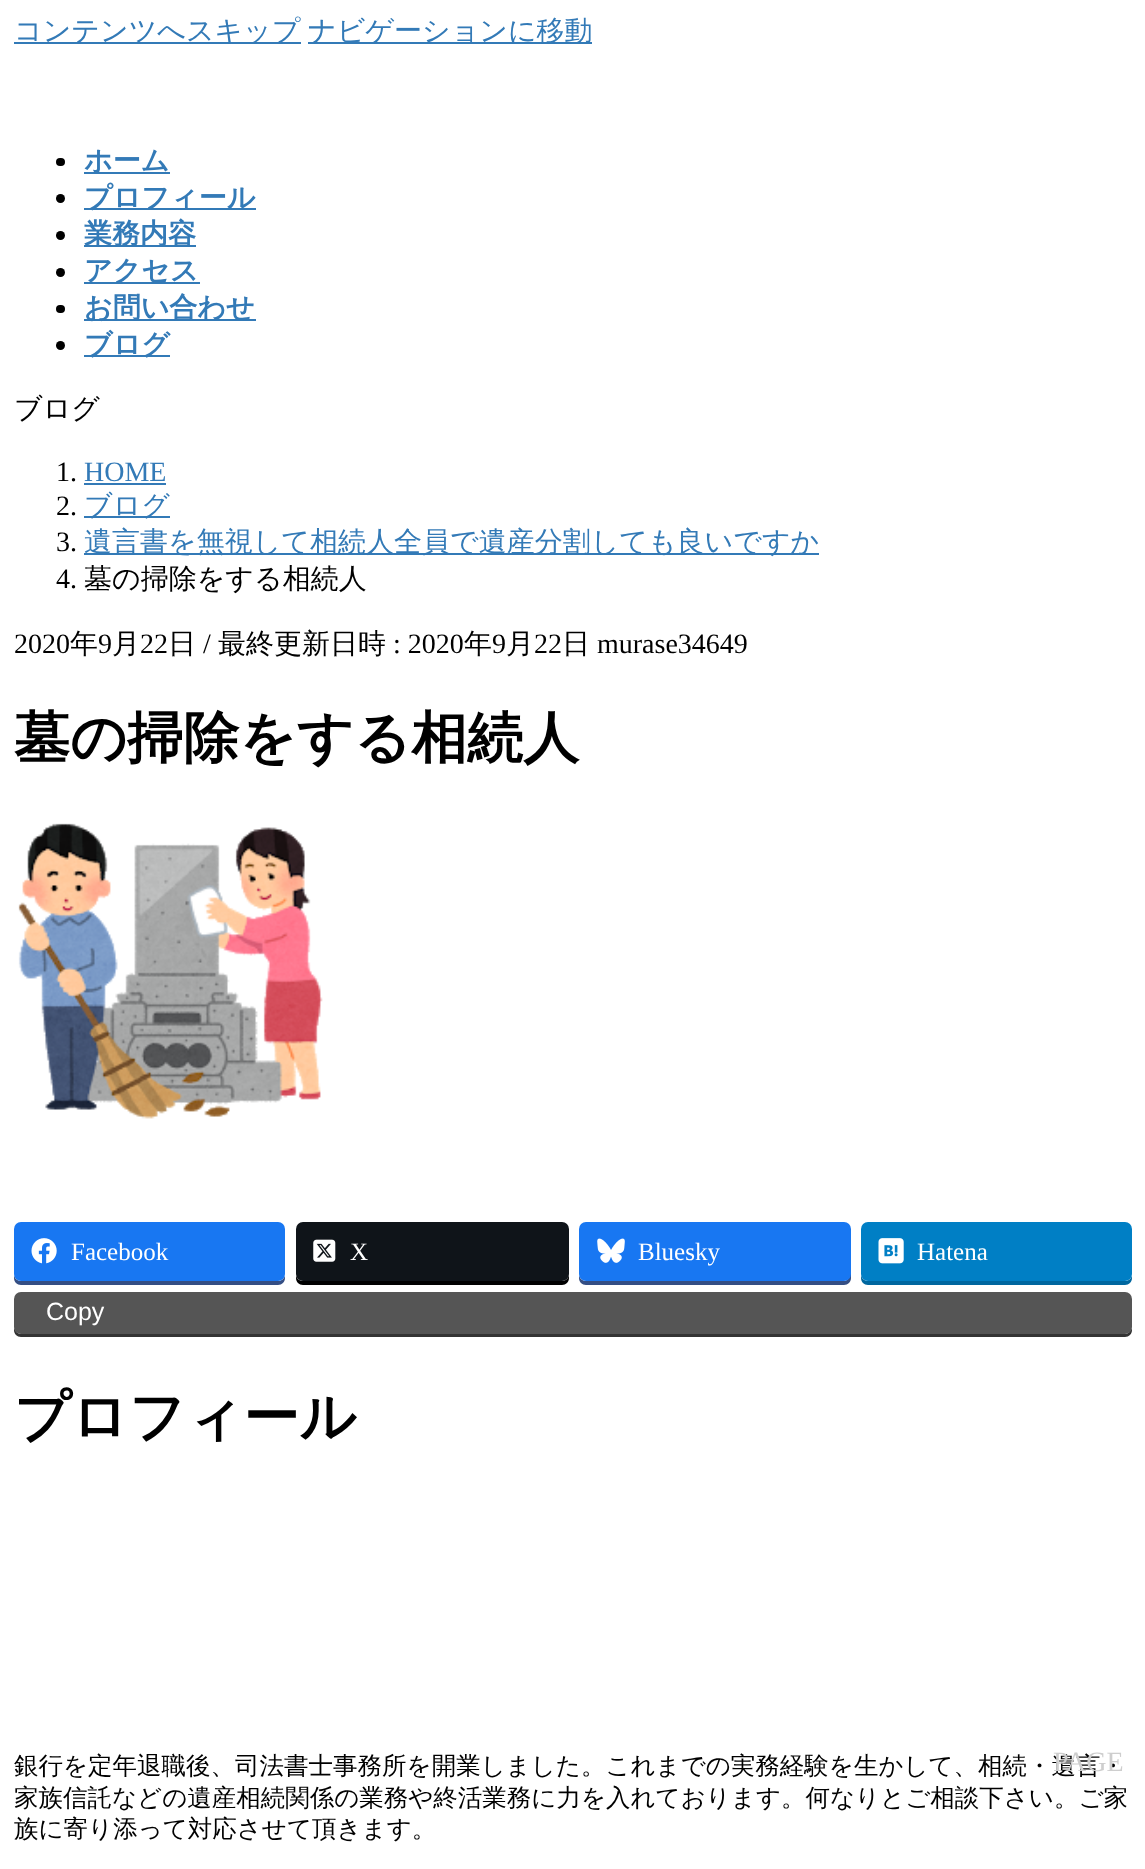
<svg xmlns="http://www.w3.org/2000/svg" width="1145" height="1869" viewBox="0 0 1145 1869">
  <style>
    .t1 { font: 500 28px WenQuanYi Zen Hei; fill: #337ab7; }
    .t2 { font: bold 28px WenQuanYi Zen Hei; fill: #337ab7; }
    .t3 { font: 500 28px WenQuanYi Zen Hei; fill: #000; }
    .t4 { font: 28px Liberation Serif; fill: #000; }
    .t5 { font: 28px Liberation Serif; fill: #337ab7; }
    .t6 { font: bold 56px WenQuanYi Zen Hei; fill: #000; }
    .t7 { font: 25px Liberation Serif; fill: #fff; }
    .t8 { font: 25px Liberation Sans; fill: #fff; }
    .t9 { font: 500 24.5px WenQuanYi Zen Hei; fill: #000; }
    .t10 { font: 28px Liberation Serif; fill: #cecece; }
  </style>
  <rect width="100%" height="100%" fill="#fff"/>
  <rect x="14" y="42" width="287" height="2" fill="#337ab7"/>
  <text x="14" y="40" class="t1">コンテンツへスキップ</text>
  <rect x="308" y="42" width="284" height="2" fill="#337ab7"/>
  <text x="308" y="40" class="t1">ナビゲーションに移動</text>
  <rect x="56" y="158" width="9" height="8" rx="4" fill="#000"/>
  <rect x="84" y="172" width="86" height="2" fill="#337ab7"/>
  <text x="84" y="170" class="t2">ホーム</text>
  <circle cx="60.5" cy="198.5" r="4.5" fill="#000"/>
  <rect x="84" y="208" width="172" height="2" fill="#337ab7"/>
  <text x="84" y="207" class="t2">プロフィール</text>
  <circle cx="60.5" cy="235.5" r="4.5" fill="#000"/>
  <rect x="84" y="245" width="112" height="2" fill="#337ab7"/>
  <text x="84" y="243" class="t2">業務内容</text>
  <circle cx="60.5" cy="272.5" r="4.5" fill="#000"/>
  <rect x="84" y="282" width="116" height="2" fill="#337ab7"/>
  <text x="84" y="280" class="t2">アクセス</text>
  <rect x="56" y="305" width="9" height="8" rx="4" fill="#000"/>
  <rect x="84" y="319" width="172" height="2" fill="#337ab7"/>
  <text x="84" y="317" class="t2">お問い合わせ</text>
  <circle cx="60.5" cy="345.5" r="4.5" fill="#000"/>
  <rect x="84" y="355" width="86" height="2" fill="#337ab7"/>
  <text x="84" y="354" class="t2">ブログ</text>
  <text x="14" y="418" class="t3">ブログ</text>
  <text x="56" y="481" class="t4">1.</text>
  <text x="84" y="481" class="t5">HOME</text>
  <rect x="84" y="483" width="82" height="2" fill="#337ab7"/>
  <text x="56" y="515" class="t4">2.</text>
  <rect x="84" y="516" width="86" height="2" fill="#337ab7"/>
  <text x="84" y="515" class="t1">ブログ</text>
  <text x="56" y="551" class="t4">3.</text>
  <rect x="84" y="553" width="735" height="2" fill="#337ab7"/>
  <text x="84" y="551" class="t1">遺言書を無視して相続人全員で遺産分割しても良いですか</text>
  <text x="56" y="588" class="t4">4.</text>
  <text x="84" y="588" class="t3">墓の掃除をする相続人</text>
  <text x="14" y="653" class="t4">2020</text>
  <text x="70" y="653" class="t3">年</text>
  <text x="98" y="653" class="t4">9</text>
  <text x="112" y="653" class="t3">月</text>
  <text x="140" y="653" class="t4">22</text>
  <text x="168" y="653" class="t3">日</text>
  <text x="203" y="653" class="t4">/</text>
  <text x="218" y="653" class="t3">最終更新日時</text>
  <text x="393" y="653" class="t4">: 2020</text>
  <text x="464" y="653" class="t3">年</text>
  <text x="492" y="653" class="t4">9</text>
  <text x="506" y="653" class="t3">月</text>
  <text x="534" y="653" class="t4">22</text>
  <text x="562" y="653" class="t3">日</text>
  <text x="597" y="653" class="t4">murase34649</text>
  <text x="14" y="757" class="t6">墓の掃除をする相続人</text>
  <image x="18" y="823" width="305" height="296" href="images/1.png"/>
  <path d="M14 1274V1278C14 1282 17 1285 21 1285H278C282 1285 285 1282 285 1278V1276C284 1279 281 1281 278 1281H21C17 1281 14 1278 14 1274Z" fill="#344e84"/>
  <rect x="14" y="1222" width="271" height="59" rx="7" fill="#1877f2"/>
  <image x="31" y="1238" width="26" height="26" href="images/2.png"/>
  <text x="71" y="1260" class="t7">Facebook</text>
  <path d="M296 1276V1278C296 1282 299 1285 303 1285H562C566 1285 569 1282 569 1278V1230V1274C569 1278 566 1281 562 1281H303C300 1281 297 1279 296 1276Z" fill="#000"/>
  <rect x="296" y="1222" width="273" height="59" rx="7" fill="#0f1419"/>
  <image x="313" y="1239" width="23" height="23" href="images/3.png"/>
  <text x="350" y="1260" class="t7">X</text>
  <path d="M579 1230V1278C579 1282 582 1285 586 1285H844C848 1285 851 1282 851 1278V1232L850 1229V1274C850 1278 847 1281 844 1281H586C582 1281 579 1278 579 1274Z" fill="#344e84"/>
  <rect x="579" y="1222" width="272" height="59" rx="7" fill="#1877f2"/>
  <image x="597" y="1238" width="28" height="25" href="images/4.png"/>
  <text x="638" y="1260" class="t7">Bluesky</text>
  <path d="M861 1274V1278C861 1282 864 1285 868 1285H1125C1129 1285 1132 1282 1132 1278V1276C1131 1279 1128 1281 1125 1281H868C864 1281 861 1278 861 1274Z" fill="#00679f"/>
  <rect x="861" y="1222" width="271" height="59" rx="7" fill="#007fc5"/>
  <image x="878" y="1238" width="26" height="26" href="images/5.png"/>
  <text x="917" y="1260" class="t7">Hatena</text>
  <path d="M14 1326V1330C14 1334 17 1337 21 1337H1125C1129 1337 1132 1334 1132 1330V1328C1131 1331 1128 1334 1125 1334H21C17 1334 14 1330 14 1326Z" fill="#333"/>
  <rect x="14" y="1292" width="1118" height="42" rx="7" fill="#555"/>
  <text x="46" y="1320" class="t8">Copy</text>
  <text x="14" y="1436" class="t6">プロフィール</text>
  <text x="14" y="1774" class="t9">銀行を定年退職後、司法書士事務所を開業しました。これまでの実務経験を生かして、相続・遺言・</text>
  <text x="14" y="1806" class="t9">家族信託などの遺産相続関係の業務や終活業務に力を入れております。何なりとご相談下さい。ご家</text>
  <text x="14" y="1837" class="t9">族に寄り添って対応させて頂きます。</text>
  <text x="1053" y="1771" class="t10">PAGE</text>
</svg>
